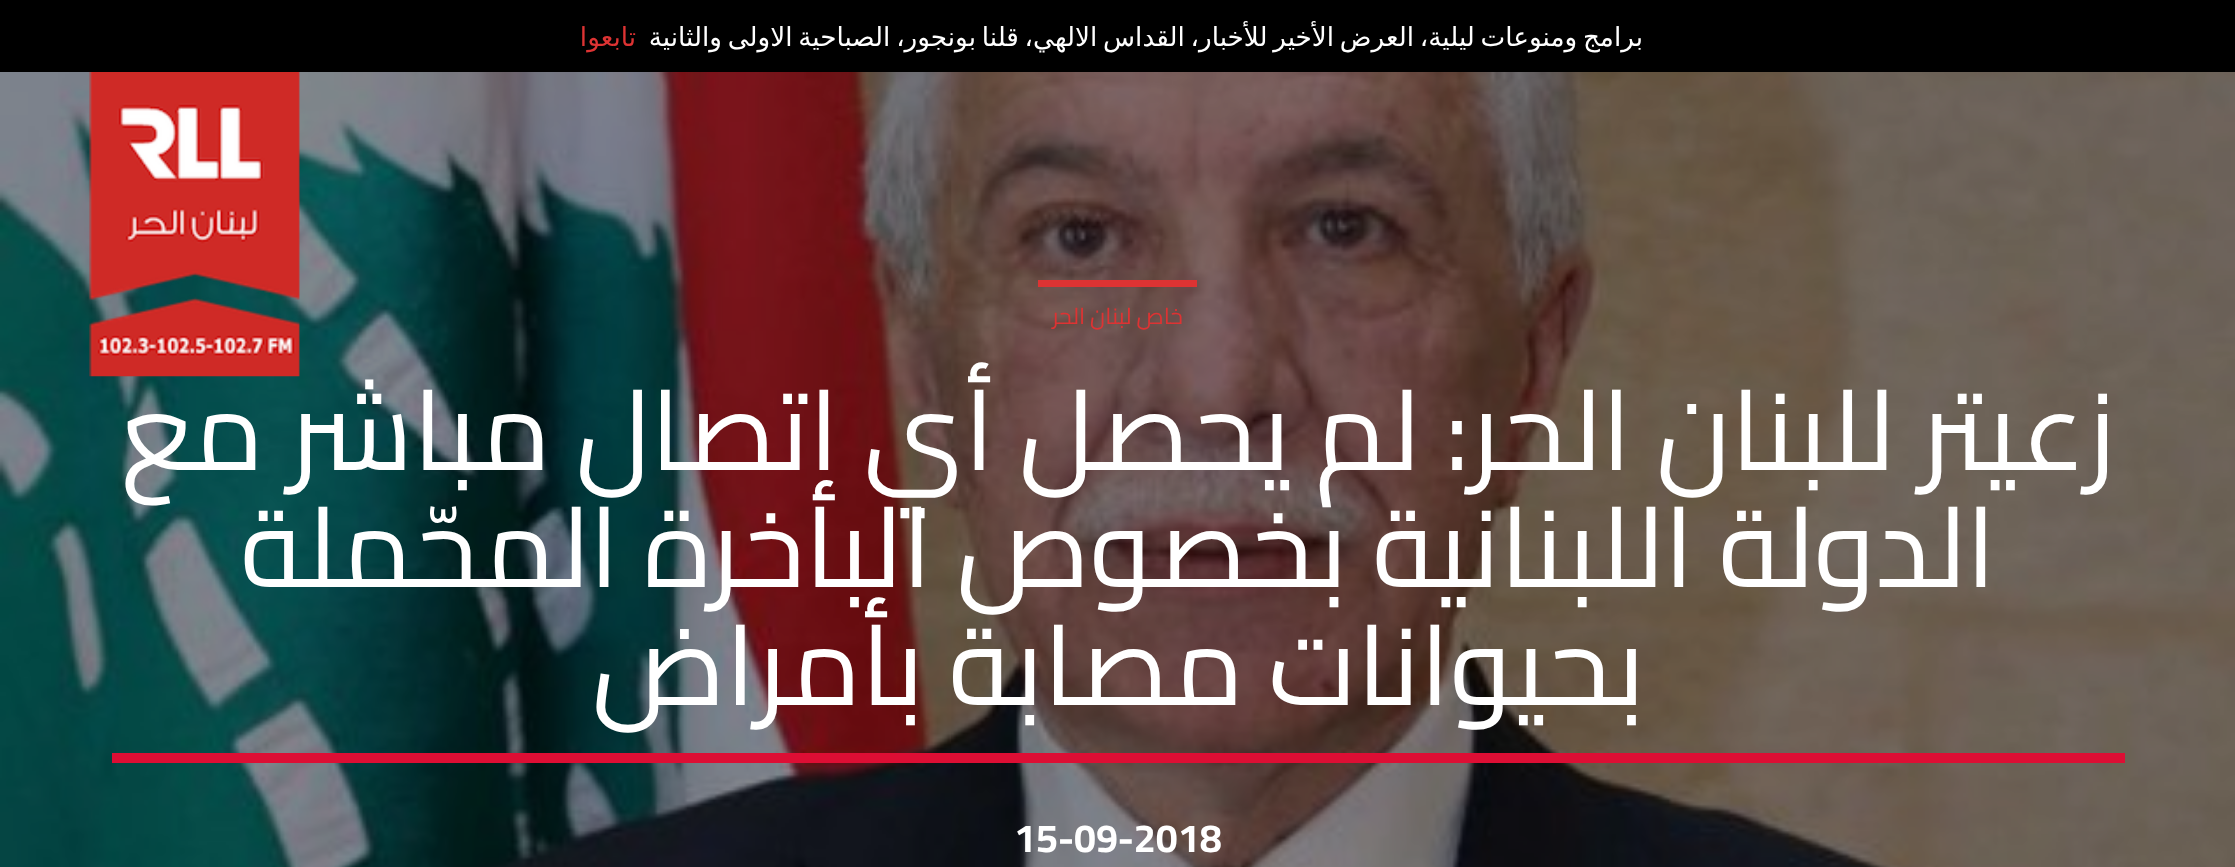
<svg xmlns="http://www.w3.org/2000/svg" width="2235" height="867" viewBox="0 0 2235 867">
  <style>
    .t1 { font: 26.25px DejaVu Sans; direction: rtl; fill: #fff; }
    .t2 { font: 26.25px DejaVu Sans; direction: rtl; fill: #d33; }
    .t3 { font: 112px Cairo; direction: rtl; fill: #fff; }
    .t4 { font: 22.75px Cairo; direction: rtl; fill: #d33; }
    .t5 { font: bold 39.5px Cairo; fill: #fff; }
  </style>
  <rect width="100%" height="100%" fill="#000"/>
  <text x="1643" y="46" word-spacing="-2.6" class="t1">برامج ومنوعات ليلية، العرض الأخير للأخبار، القداس الالهي، قلنا بونجور، الصباحية الاولى والثانية</text>
  <text x="636" y="46" class="t2">تابعوا</text>
  <image x="0" y="72" width="2235" height="795" href="images/2.png"/>
  <text x="2115" y="470" word-spacing="0.25" class="t3">زعيتر للبنان الحر: لم يحصل أي إتصال مباشر مع</text>
  <image x="89" y="72" width="211" height="305" href="images/1.png"/>
  <rect x="1038" y="280" width="159" height="7" fill="#d33"/>
  <text x="1183" y="324" class="t4">خاص لبنان الحر</text>
  <rect x="112" y="753" width="2013" height="10" fill="#dd0e34"/>
  <text x="1996" y="587" class="t3">الدولة اللبنانية بخصوص الباخرة المحّملة</text>
  <text x="1645" y="705" class="t3">بحيوانات مصابة بأمراض</text>
  <text x="1014" y="852" class="t5">15-09-2018</text>
</svg>
